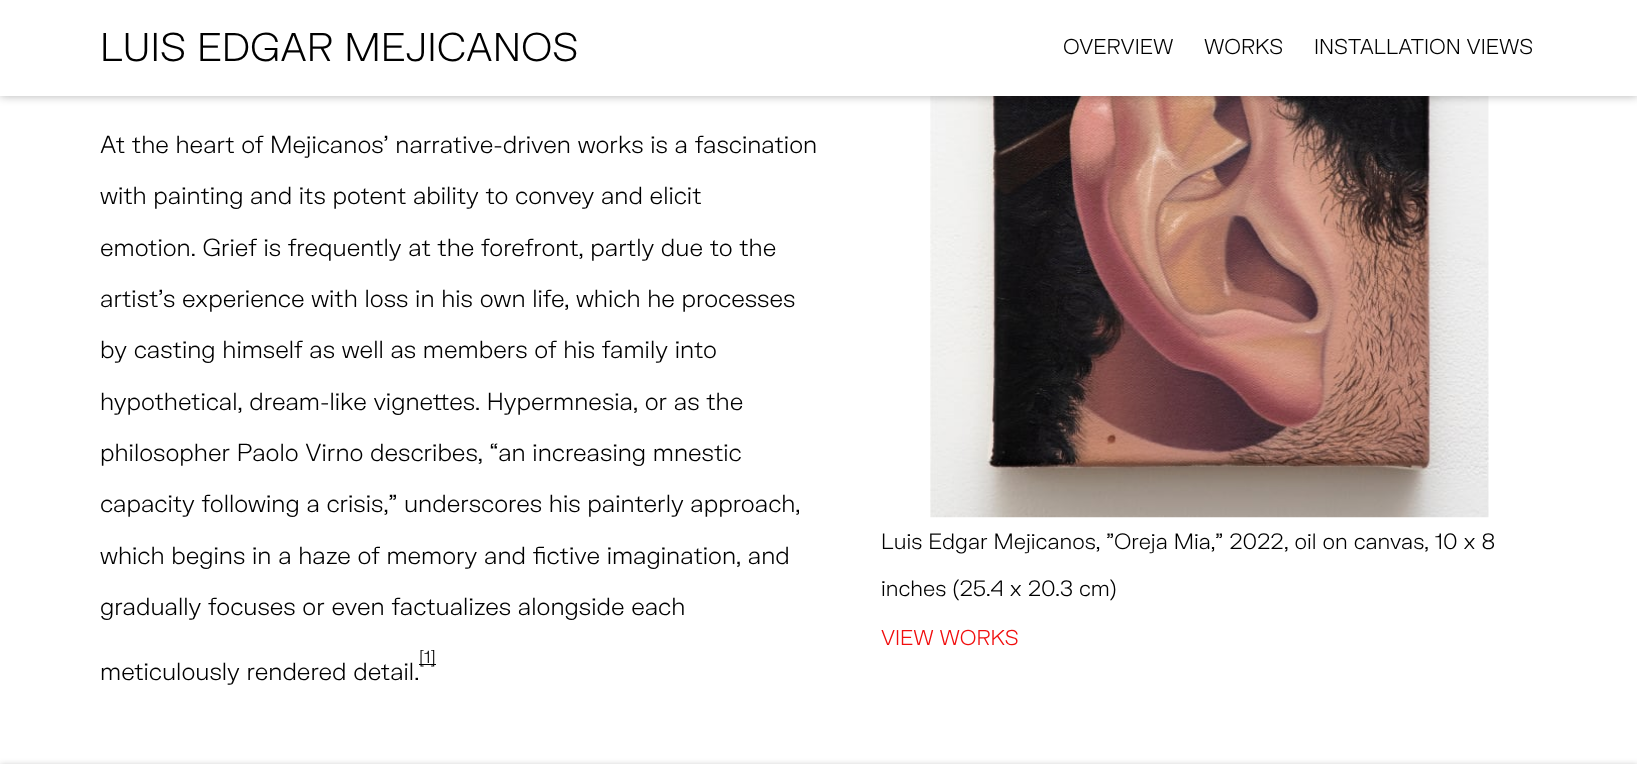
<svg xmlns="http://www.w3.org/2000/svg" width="1637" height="764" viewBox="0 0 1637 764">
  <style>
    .t1 { font: 300 39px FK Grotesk; fill: #000; }
    .t2 { font: 300 20.75px FK Grotesk; fill: #000; }
    .t3 { font: 300 24px FK Grotesk; fill: #000; }
    .t4 { font: 300 17px FK Grotesk; fill: #000; }
    .t5 { font: 300 21.6px FK Grotesk; fill: #000; }
    .t6 { font: 300 20.75px FK Grotesk; fill: #f10e0e; }
  </style>
  <rect width="100%" height="100%" fill="#fff"/>
  <image x="930" y="96" width="559" height="422" href="images/1.png"/>
  <rect x="0" y="0" width="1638" height="96" fill="#0000004d" filter="blur(5px)"/>
  <rect x="0" y="0" width="1637" height="96" fill="#fff"/>
  <text x="100" y="61" class="t1">LUIS EDGAR MEJICANOS</text>
  <text x="1063" y="54" class="t2">OVERVIEW</text>
  <text x="1204" y="54" class="t2">WORKS</text>
  <text x="1314" y="54" class="t2">INSTALLATION VIEWS</text>
  <text x="100" y="153" class="t3">At the heart of Mejicanos’ narrative-driven works is a fascination</text>
  <text x="100" y="204" class="t3">with painting and its potent ability to convey and elicit</text>
  <text x="100" y="256" class="t3">emotion. Grief is frequently at the forefront, partly due to the</text>
  <text x="100" y="307" class="t3">artist’s experience with loss in his own life, which he processes</text>
  <text x="100" y="358" class="t3">by casting himself as well as members of his family into</text>
  <text x="100" y="410" class="t3">hypothetical, dream-like vignettes. Hypermnesia, or as the</text>
  <text x="100" y="461" class="t3">philosopher Paolo Virno describes, “an increasing mnestic</text>
  <text x="100" y="512" class="t3">capacity following a crisis,” underscores his painterly approach,</text>
  <text x="100" y="564" class="t3">which begins in a haze of memory and fictive imagination, and</text>
  <text x="100" y="615" class="t3">gradually focuses or even factualizes alongside each</text>
  <rect x="419" y="664" width="17" height="1" fill="#000"/>
  <text x="419" y="663" class="t4">[1]</text>
  <text x="100" y="680" class="t3">meticulously rendered detail.</text>
  <text x="881" y="549" class="t5">Luis Edgar Mejicanos, "Oreja Mia," 2022, oil on canvas, 10 x 8</text>
  <text x="881" y="596" class="t5">inches (25.4 x 20.3 cm)</text>
  <text x="881" y="645" class="t6">VIEW WORKS</text>
  <rect x="0" y="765" width="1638" height="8" fill="#0000003b" filter="blur(3px)"/>
</svg>
